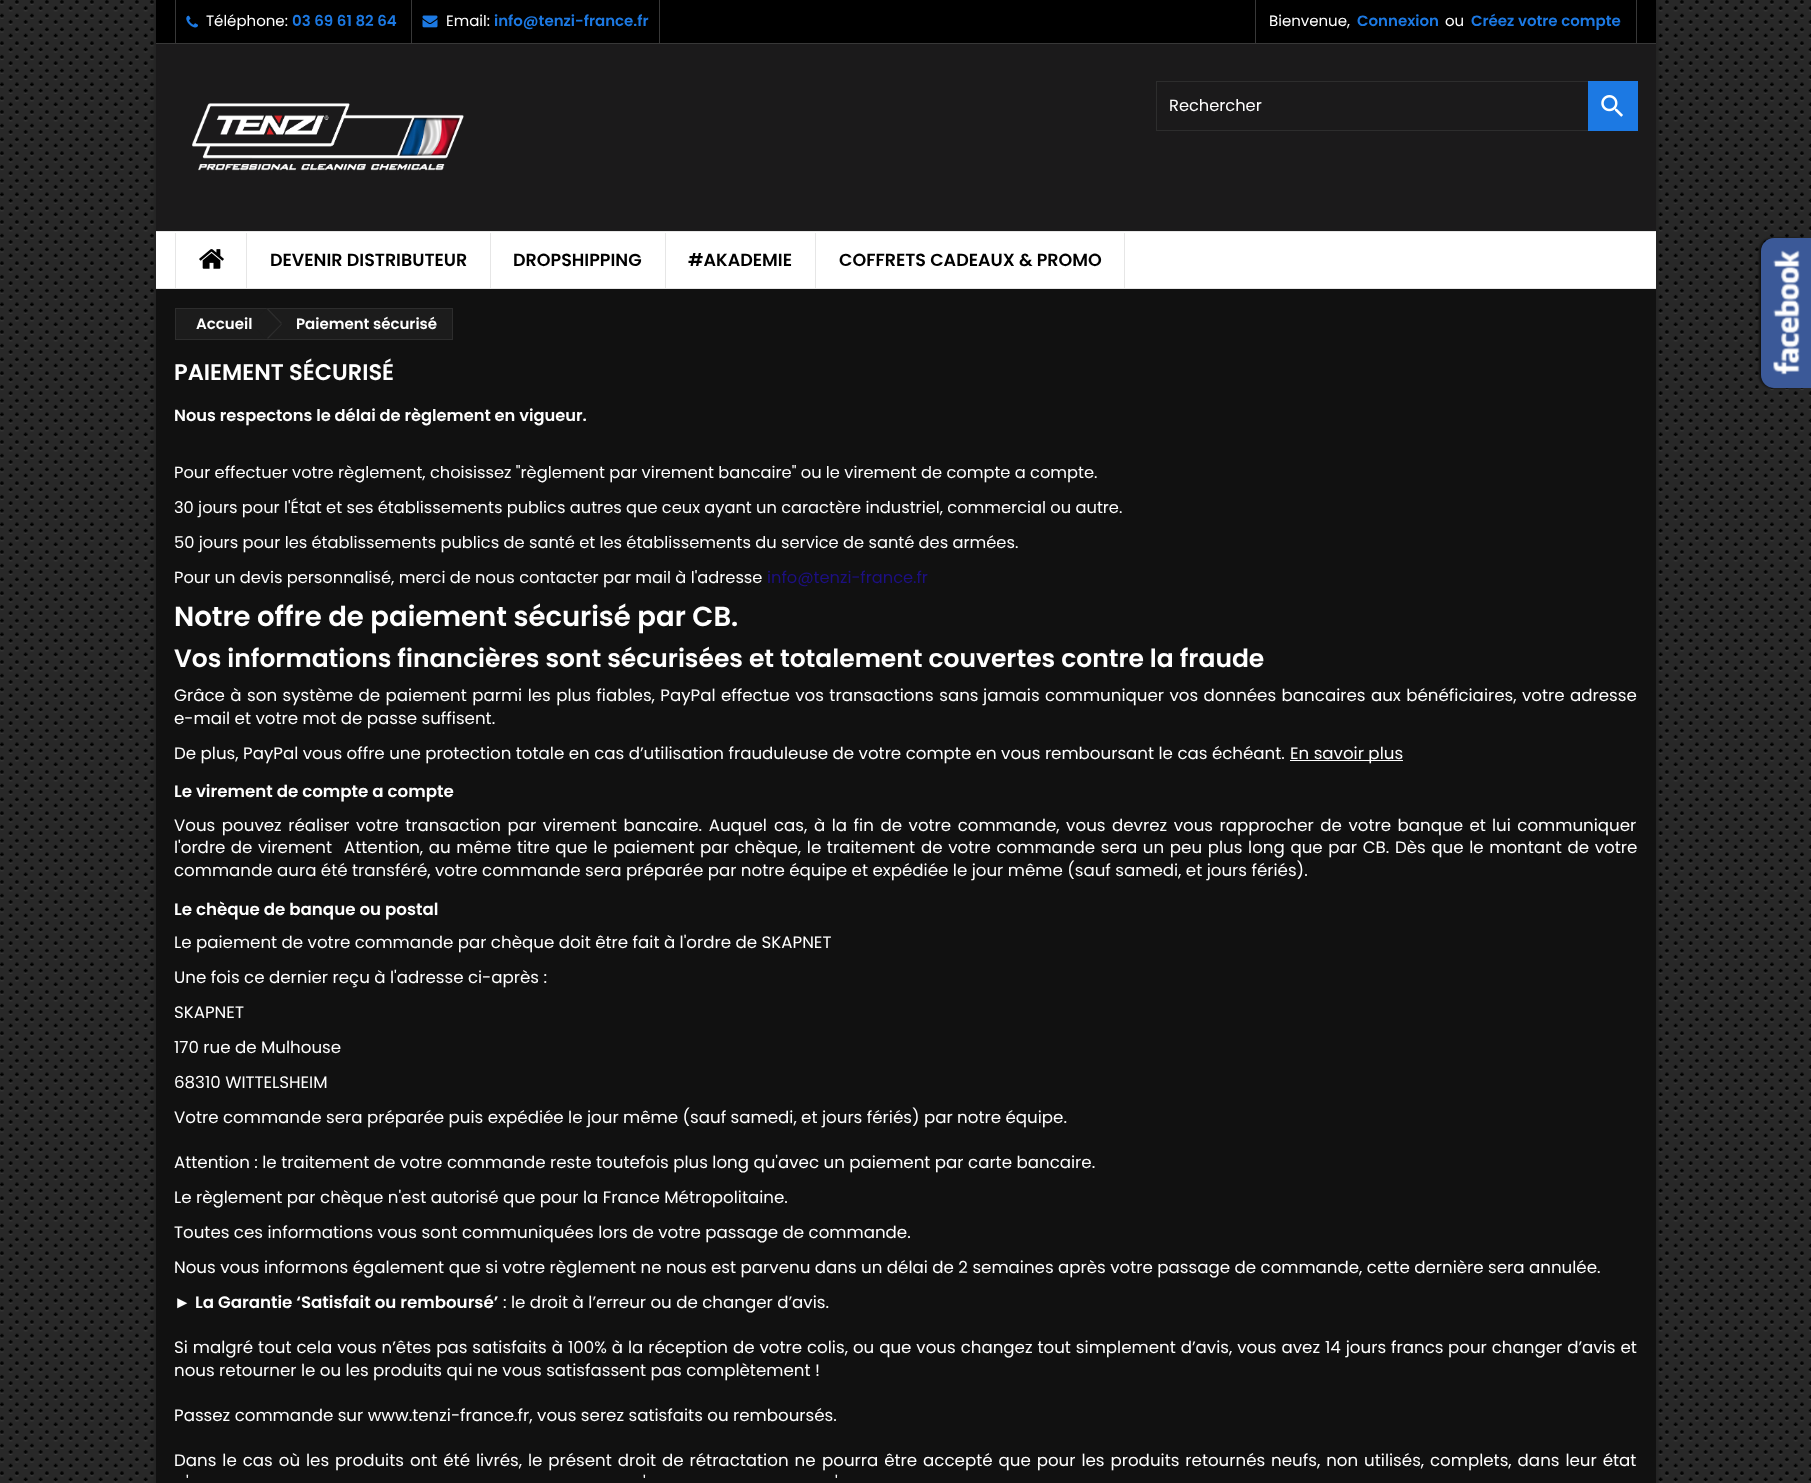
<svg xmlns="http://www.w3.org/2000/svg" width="1811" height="1483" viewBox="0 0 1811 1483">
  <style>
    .t1 { font: 15px Poppins; fill: #fff; }
    .t2 { font: 600 15px Poppins; fill: #1c79e3; }
    .t3 { font: 16.25px Poppins; fill: #fff; }
    .t4 { font: 600 17.5px Poppins; fill: #000; }
    .t5 { font: 600 15px Poppins; fill: #fff; }
    .t6 { font: 600 22.5px Poppins; fill: #fff; }
    .t7 { font: 600 16.25px Poppins; fill: #fff; }
    .t8 { font: 16.25px Poppins; fill: #1d1082; }
    .t9 { font: 600 27.5px Poppins; fill: #fff; }
    .t10 { font: 600 25px Poppins; fill: #fff; }
    .t11 { font: 16.67px Poppins; fill: #fff; }
    .t12 { font: 600 16.67px Poppins; fill: #fff; }
    .t13 { font: 16.67px Liberation Sans; fill: #fff; }
  </style>
  <rect width="100%" height="100%" fill="#fff"/>
  <image x="0" y="0" width="1811" height="1483" href="images/1.png"/>
  <rect x="156" y="0" width="1500" height="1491" fill="#00000033" filter="blur(2.5px)"/>
  <rect x="156" y="289" width="1500" height="1194" fill="#111"/>
  <rect x="156" y="0" width="1500" height="43" fill="#000"/>
  <rect x="156" y="43" width="1500" height="1" fill="#383838"/>
  <rect x="175" y="0" width="1" height="43" fill="#383838"/>
  <image x="186" y="15" width="12" height="13" href="images/2.png"/>
  <text x="206" y="26" class="t1">Téléphone:</text>
  <text x="292" y="26" class="t2">03 69 61 82 64</text>
  <rect x="659" y="0" width="1" height="43" fill="#383838"/>
  <rect x="411" y="0" width="1" height="43" fill="#383838"/>
  <image x="422" y="15" width="16" height="13" href="images/3.png"/>
  <text x="446" y="26" class="t1">Email:</text>
  <text x="494" y="26" class="t2">info@tenzi-france.fr</text>
  <rect x="1636" y="0" width="1" height="43" fill="#383838"/>
  <rect x="1255" y="0" width="1" height="43" fill="#383838"/>
  <text x="1269" y="26" class="t1">Bienvenue,</text>
  <text x="1357" y="26" class="t2">Connexion</text>
  <text x="1445" y="26" class="t1">ou</text>
  <text x="1471" y="26" class="t2">Créez votre compte</text>
  <rect x="156" y="44" width="1500" height="187" fill="#1b1a1b"/>
  <image x="192" y="103" width="272" height="68" href="images/4.png"/>
  <rect x="1156.5" y="81.5" width="481" height="49" fill="none" stroke="#2d2d2d"/>
  <text x="1169" y="111" class="t3">Rechercher</text>
  <rect x="1588" y="81" width="50" height="50" fill="#1c79e3"/>
  <image x="1601" y="95" width="22" height="22" href="images/5.png"/>
  <rect x="156" y="232" width="1500" height="56" fill="#fff"/>
  <rect x="156" y="231" width="1500" height="1" fill="#e6e6e6"/>
  <rect x="156" y="288" width="1500" height="1" fill="#e6e6e6"/>
  <rect x="175" y="233" width="1" height="55" fill="#e6e6e6"/>
  <image x="199" y="249" width="25" height="20" href="images/6.png"/>
  <rect x="246" y="233" width="1" height="55" fill="#e6e6e6"/>
  <text x="270" y="266" class="t4">DEVENIR DISTRIBUTEUR</text>
  <rect x="490" y="233" width="1" height="55" fill="#e6e6e6"/>
  <text x="513" y="266" class="t4">DROPSHIPPING</text>
  <rect x="665" y="233" width="1" height="55" fill="#e6e6e6"/>
  <text x="688" y="266" class="t4">#AKADEMIE</text>
  <rect x="1124" y="233" width="1" height="55" fill="#e6e6e6"/>
  <rect x="815" y="233" width="1" height="55" fill="#e6e6e6"/>
  <text x="839" y="266" class="t4">COFFRETS CADEAUX &amp; PROMO</text>
  <rect x="175.5" y="308.5" width="277" height="31" fill="#1c1c1c" stroke="#2d2d2d"/>
  <text x="196" y="329" class="t5">Accueil</text>
  <path d="M268.5 309.5L281 322C282 323 282 324.5 281 325.5L268.5 338C267.5 339 266 339 265 338L253 325.5C252 324.5 252 323 253 322L265 309.5C266 308.5 267.5 308.5 268.5 309.5Z" fill="#1c1c1c"/>
  <path d="M268 308.5L282 323L281 324L267 309.5ZM281 324L282 324.5L268 339L267 338Z" fill="#2d2d2d"/>
  <text x="296" y="329" class="t5">Paiement sécurisé</text>
  <text x="174" y="380" class="t6">PAIEMENT SÉCURISÉ</text>
  <text x="174" y="421" class="t7">Nous respectons le délai de règlement en vigueur.</text>
  <text x="174" y="478" class="t3">Pour effectuer votre règlement, choisissez "règlement par virement bancaire" ou le virement de compte a compte.</text>
  <text x="174" y="513" class="t3">30 jours pour l'État et ses établissements publics autres que ceux ayant un caractère industriel, commercial ou autre.</text>
  <text x="174" y="548" class="t3">50 jours pour les établissements publics de santé et les établissements du service de santé des armées.</text>
  <text x="174" y="583" class="t3">Pour un devis personnalisé, merci de nous contacter par mail à l'adresse</text>
  <text x="767" y="583" class="t8">info@tenzi-france.fr</text>
  <text x="174" y="626" class="t9">Notre offre de paiement sécurisé par CB.</text>
  <text x="174" y="667" class="t10">Vos informations financières sont sécurisées et totalement couvertes contre la fraude</text>
  <text x="174" y="701" word-spacing="1" class="t11">Grâce à son système de paiement parmi les plus fiables, PayPal</text>
  <text x="721" y="701" word-spacing="1" class="t11">effectue vos transactions sans</text>
  <text x="983" y="701" class="t11">jamais</text>
  <text x="1045" y="701" word-spacing="1" class="t11">communiquer vos données bancaires aux bénéficiaires, votre adresse</text>
  <text x="174" y="724" class="t11">e-mail et votre mot de passe suffisent.</text>
  <text x="174" y="759" class="t11">De plus, PayPal vous offre une protection totale en cas d’utilisation frauduleuse de votre compte en vous remboursant le cas échéant.</text>
  <rect x="1290" y="760" width="113" height="1" fill="#fff"/>
  <text x="1290" y="759" class="t11">En savoir plus</text>
  <text x="174" y="797" class="t12">Le virement de compte a compte</text>
  <text x="174" y="831" word-spacing="2.1" class="t11">Vous pouvez réaliser votre transaction par virement bancaire. Auquel</text>
  <text x="774" y="831" word-spacing="2.1" class="t11">cas, à la fin de votre commande, vous devrez vous rapprocher de votre banque et</text>
  <text x="1492" y="831" word-spacing="2" class="t11">lui communiquer</text>
  <text x="174" y="853" word-spacing="1" class="t11">l'ordre de virement</text>
  <text x="344" y="853" word-spacing="1.2" class="t11">Attention, au même titre que le paiement par chèque, le traitement</text>
  <text x="921" y="853" word-spacing="1.2" class="t11">de votre commande sera un peu plus long que par CB. Dès que le montant de votre</text>
  <text x="174" y="876" class="t11">commande aura été transféré, votre commande sera préparée par notre équipe et expédiée le jour même (sauf samedi, et jours fériés).</text>
  <text x="174" y="915" class="t12">Le chèque de banque ou postal</text>
  <text x="174" y="948" class="t11">Le paiement de votre commande par chèque doit être fait à l'ordre de SKAPNET</text>
  <text x="174" y="983" class="t11">Une fois ce dernier reçu à l'adresse ci-après :</text>
  <text x="174" y="1018" class="t11">SKAPNET</text>
  <text x="174" y="1053" class="t11">170 rue de Mulhouse</text>
  <text x="174" y="1088" class="t11">68310 WITTELSHEIM</text>
  <text x="174" y="1123" class="t11">Votre commande sera préparée puis expédiée le jour même (sauf samedi, et jours fériés) par notre équipe.</text>
  <text x="174" y="1168" class="t11">Attention : le traitement de votre commande reste toutefois plus long qu'avec un paiement par carte bancaire.</text>
  <text x="174" y="1203" class="t11">Le règlement par chèque n'est autorisé que pour la France Métropolitaine.</text>
  <text x="174" y="1238" class="t11">Toutes ces informations vous sont communiquées lors de votre passage de commande.</text>
  <text x="174" y="1273" class="t11">Nous vous informons également que si votre règlement ne nous est parvenu dans un délai de 2 semaines après votre passage de commande, cette dernière sera annulée.</text>
  <text x="174" y="1308" class="t13">►</text>
  <text x="195" y="1308" class="t12">La Garantie ‘Satisfait ou remboursé’</text>
  <text x="503" y="1308" class="t11">: le droit à l’erreur ou de changer d’avis.</text>
  <text x="174" y="1353" word-spacing="0.5" class="t11">Si malgré tout cela vous n’êtes pas satisfaits à 100% à la réception de votre</text>
  <text x="807" y="1353" word-spacing="0.5" class="t11">colis, ou que vous changez tout simplement d’avis, vous avez 14 jours francs</text>
  <text x="1448" y="1353" word-spacing="0.5" class="t11">pour changer d’avis et</text>
  <text x="174" y="1376" class="t11">nous retourner le ou les produits qui ne vous satisfassent pas complètement !</text>
  <text x="174" y="1421" class="t11">Passez commande sur www.tenzi-france.fr, vous serez satisfaits ou remboursés.</text>
  <text x="174" y="1466" word-spacing="1.5" class="t11">Dans le cas où les produits ont été livrés, le présent droit de rétractation ne</text>
  <text x="822" y="1466" word-spacing="1.5" class="t11">pourra être accepté que pour les produits retournés neufs, non utilisés,</text>
  <text x="1430" y="1466" word-spacing="1.5" class="t11">complets, dans leur état</text>
  <text x="186" y="1488" class="t11">'</text>
  <text x="643" y="1488" class="t11">'</text>
  <text x="835" y="1488" class="t11">'</text>
  <rect x="1759" y="238" width="50" height="150" rx="13" fill="#00000080" filter="blur(1px)"/>
  <path d="M1774 238H1811V388H1774C1767 388 1761 382 1761 375V251C1761 244 1767 238 1774 238Z" fill="#3b5998"/>
  <image x="1773" y="250" width="27" height="125" href="images/7.png"/>
</svg>
